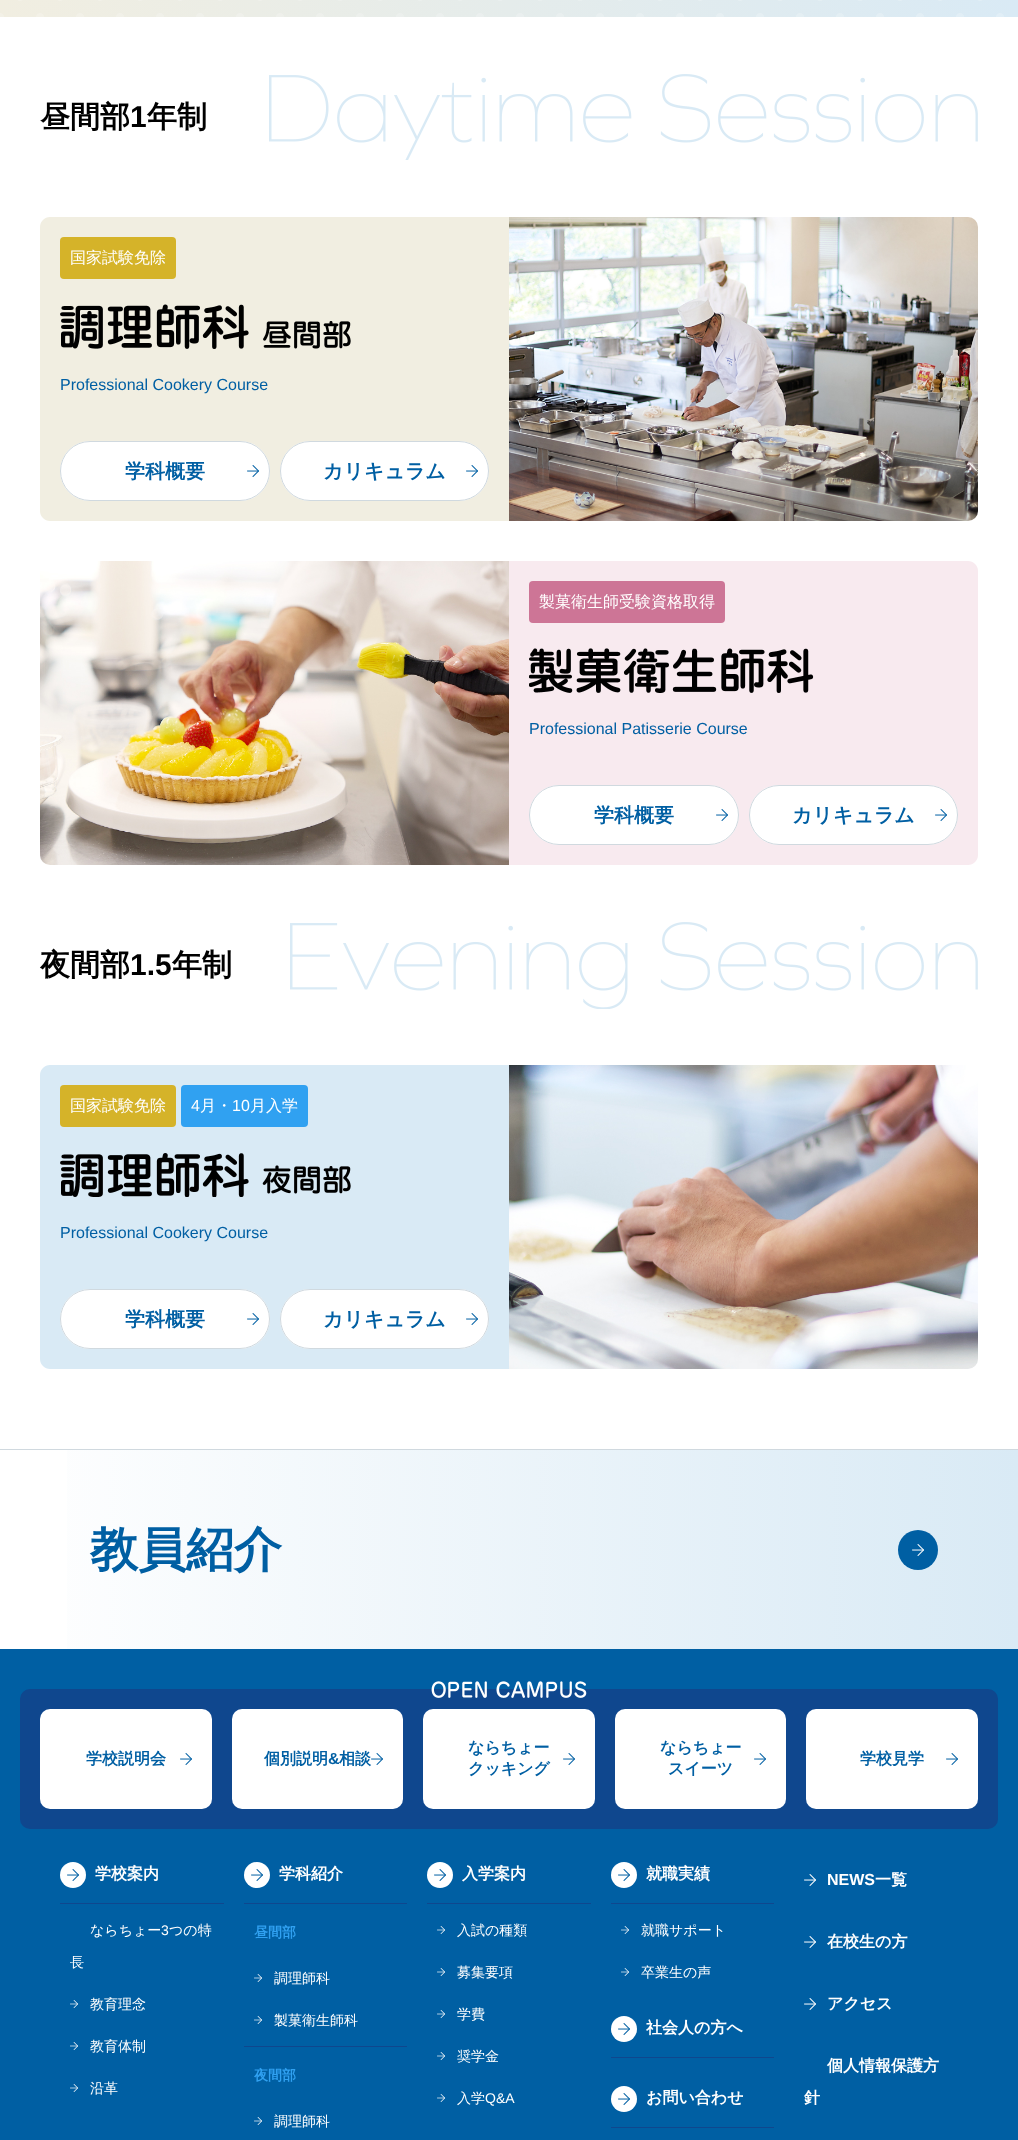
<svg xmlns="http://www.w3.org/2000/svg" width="1018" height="2140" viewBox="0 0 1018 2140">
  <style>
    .t1 { font: bold 30px WenQuanYi Zen Hei; fill: #000; }
    .t2 { font: bold 30px Liberation Sans; fill: #000; }
    .t3 { font: 500 16px WenQuanYi Zen Hei; fill: #fff; }
    .t4 { font: 16px Liberation Sans; fill: #005fa3; }
    .t5 { font: bold 20px WenQuanYi Zen Hei; fill: #005fa3; }
    .t6 { font: 16px Liberation Sans; fill: #fff; }
    .t7 { font: bold 48px WenQuanYi Zen Hei; fill: #005fa3; }
    .t8 { font: bold 16px WenQuanYi Zen Hei; fill: #005fa3; }
    .t9 { font: bold 16px Liberation Sans; fill: #005fa3; }
    .t10 { font: bold 16px WenQuanYi Zen Hei; fill: #fff; }
    .t11 { font: 500 14px WenQuanYi Zen Hei; fill: #fff; }
    .t12 { font: 14px Liberation Sans; fill: #fff; }
    .t13 { font: bold 14px WenQuanYi Zen Hei; fill: #30a1f1; }
    .t14 { font: bold 16px Liberation Sans; fill: #fff; }
  </style>
  <defs>
    <linearGradient id="g1" gradientUnits="userSpaceOnUse" x1="0" y1="1550" x2="1018" y2="1550"><stop offset="0" stop-color="#fff"/><stop offset="1" stop-color="#d9eaf5"/></linearGradient>
  </defs>
  <rect width="100%" height="100%" fill="#fff"/>
  <image x="0" y="0" width="1018" height="17" href="images/1.png"/>
  <image x="269" y="74" width="709" height="86" href="images/2.png"/>
  <text x="40" y="127" class="t1">昼間部</text>
  <text x="130" y="127" class="t2">1</text>
  <text x="147" y="127" class="t1">年制</text>
  <path d="M50 217H509V521H50C44.5 521 40 516.5 40 511V227C40 221.5 44.5 217 50 217Z" fill="#f1eee1"/>
  <rect x="60" y="237" width="116" height="42" rx="4" fill="#d5b329"/>
  <text x="70" y="263" class="t3">国家試験免除</text>
  <image x="60" y="304" width="291" height="45" href="images/3.png"/>
  <text x="60" y="390" class="t4">Professional Cookery Course</text>
  <rect x="60" y="441" width="210" height="60" rx="30" fill="#fff"/>
  <image x="247" y="465" width="12" height="12" href="images/4.png"/>
  <rect x="60.5" y="441.5" width="209" height="59" rx="29.5" fill="none" stroke="#d0d9df"/>
  <text x="125" y="478" class="t5">学科概要</text>
  <rect x="280" y="441" width="209" height="60" rx="30" fill="#fff"/>
  <image x="466" y="465" width="12" height="12" href="images/4.png"/>
  <rect x="280.5" y="441.5" width="208" height="59" rx="29.5" fill="none" stroke="#d0d9df"/>
  <text x="323" y="478" class="t5">カリキュラム</text>
  <image x="509" y="217" width="469" height="304" href="images/5.png"/>
  <image x="40" y="561" width="469" height="304" href="images/6.png"/>
  <path d="M509 561H968C973.5 561 978 565.5 978 571V855C978 860.5 973.5 865 968 865H509Z" fill="#f8eaef"/>
  <rect x="529" y="581" width="196" height="42" rx="4" fill="#cd7596"/>
  <text x="539" y="607" class="t3">製菓衛生師受験資格取得</text>
  <image x="529" y="648" width="285" height="45" href="images/7.png"/>
  <text x="529" y="734" class="t4">Professional Patisserie Course</text>
  <rect x="529" y="785" width="210" height="60" rx="30" fill="#fff"/>
  <image x="716" y="809" width="12" height="12" href="images/4.png"/>
  <rect x="529.5" y="785.5" width="209" height="59" rx="29.5" fill="none" stroke="#d0d9df"/>
  <text x="594" y="822" class="t5">学科概要</text>
  <rect x="749" y="785" width="209" height="60" rx="30" fill="#fff"/>
  <image x="935" y="809" width="12" height="12" href="images/4.png"/>
  <rect x="749.5" y="785.5" width="208" height="59" rx="29.5" fill="none" stroke="#d0d9df"/>
  <text x="792" y="822" class="t5">カリキュラム</text>
  <image x="290" y="922" width="688" height="87" href="images/8.png"/>
  <text x="40" y="975" class="t1">夜間部</text>
  <text x="130" y="975" class="t2">1.5</text>
  <text x="172" y="975" class="t1">年制</text>
  <path d="M50 1065H509V1369H50C44.5 1369 40 1364.5 40 1359V1075C40 1069.5 44.5 1065 50 1065Z" fill="#d9eaf5"/>
  <rect x="60" y="1085" width="116" height="42" rx="4" fill="#d5b329"/>
  <text x="70" y="1111" class="t3">国家試験免除</text>
  <rect x="181" y="1085" width="127" height="42" rx="4" fill="#30a1f1"/>
  <text x="191" y="1111" class="t6">4</text>
  <text x="200" y="1111" class="t3">月・</text>
  <text x="232" y="1111" class="t6">10</text>
  <text x="250" y="1111" class="t3">月入学</text>
  <image x="60" y="1153" width="291" height="44" href="images/9.png"/>
  <text x="60" y="1238" class="t4">Professional Cookery Course</text>
  <rect x="60" y="1289" width="210" height="60" rx="30" fill="#fff"/>
  <image x="247" y="1313" width="12" height="12" href="images/4.png"/>
  <rect x="60.5" y="1289.5" width="209" height="59" rx="29.5" fill="none" stroke="#d0d9df"/>
  <text x="125" y="1326" class="t5">学科概要</text>
  <rect x="280" y="1289" width="209" height="60" rx="30" fill="#fff"/>
  <image x="466" y="1313" width="12" height="12" href="images/4.png"/>
  <rect x="280.5" y="1289.5" width="208" height="59" rx="29.5" fill="none" stroke="#d0d9df"/>
  <text x="323" y="1326" class="t5">カリキュラム</text>
  <image x="509" y="1065" width="469" height="304" href="images/10.png"/>
  <rect x="67" y="1450" width="951" height="199" fill="url(#g1)"/>
  <rect x="0" y="1449" width="1018" height="1" fill="#d0d9df"/>
  <text x="90" y="1566" class="t7">教員紹介</text>
  <circle cx="918" cy="1550" r="20" fill="#005fa3"/>
  <image x="912" y="1544" width="12" height="12" href="images/11.png"/>
  <rect x="0" y="1649" width="1018" height="491" fill="#005fa3"/>
  <rect x="20" y="1689" width="978" height="140" rx="10" fill="#0f478e"/>
  <image x="431" y="1681" width="156" height="17" href="images/12.png"/>
  <rect x="40" y="1709" width="172" height="100" rx="10" fill="#fff"/>
  <image x="180" y="1753" width="12" height="12" href="images/4.png"/>
  <text x="86" y="1764" class="t8">学校説明会</text>
  <rect x="232" y="1709" width="171" height="100" rx="10" fill="#fff"/>
  <image x="371" y="1753" width="12" height="12" href="images/4.png"/>
  <text x="264" y="1764" class="t8">個別説明</text>
  <text x="328" y="1764" class="t9">&amp;</text>
  <text x="339" y="1764" class="t8">相談</text>
  <rect x="423" y="1709" width="172" height="100" rx="10" fill="#fff"/>
  <image x="563" y="1753" width="12" height="12" href="images/4.png"/>
  <text x="468" y="1753" class="t8">ならちょー</text>
  <text x="468" y="1774" class="t8">クッキング</text>
  <rect x="615" y="1709" width="171" height="100" rx="10" fill="#fff"/>
  <image x="754" y="1753" width="12" height="12" href="images/4.png"/>
  <text x="660" y="1753" class="t8">ならちょー</text>
  <text x="668" y="1774" class="t8">スイーツ</text>
  <rect x="806" y="1709" width="172" height="100" rx="10" fill="#fff"/>
  <image x="946" y="1753" width="12" height="12" href="images/4.png"/>
  <text x="860" y="1764" class="t8">学校見学</text>
  <rect x="60" y="1903" width="164" height="1" fill="#0f478e"/>
  <circle cx="73" cy="1875" r="13" fill="#fff"/>
  <image x="67" y="1869" width="12" height="12" href="images/4.png"/>
  <text x="95" y="1879" class="t10">学校案内</text>
  <text x="90" y="1935" class="t11">ならちょー</text>
  <text x="161" y="1935" class="t12">3</text>
  <text x="169" y="1935" class="t11">つの特</text>
  <text x="70" y="1967" class="t11">長</text>
  <image x="70" y="2000" width="8" height="8" href="images/13.png"/>
  <text x="90" y="2009" class="t11">教育理念</text>
  <image x="70" y="2042" width="8" height="8" href="images/13.png"/>
  <text x="90" y="2051" class="t11">教育体制</text>
  <image x="70" y="2084" width="8" height="8" href="images/13.png"/>
  <text x="90" y="2093" class="t11">沿革</text>
  <rect x="244" y="1903" width="163" height="1" fill="#0f478e"/>
  <circle cx="257" cy="1875" r="13" fill="#fff"/>
  <image x="251" y="1869" width="12" height="12" href="images/4.png"/>
  <text x="279" y="1879" class="t10">学科紹介</text>
  <text x="254" y="1937" class="t13">昼間部</text>
  <rect x="244" y="2046" width="163" height="1" fill="#0f478e"/>
  <image x="254" y="1974" width="8" height="8" href="images/13.png"/>
  <text x="274" y="1983" class="t11">調理師科</text>
  <image x="254" y="2016" width="8" height="8" href="images/13.png"/>
  <text x="274" y="2025" class="t11">製菓衛生師科</text>
  <text x="254" y="2080" class="t13">夜間部</text>
  <image x="254" y="2117" width="8" height="8" href="images/13.png"/>
  <text x="274" y="2126" class="t11">調理師科</text>
  <rect x="427" y="1903" width="164" height="1" fill="#0f478e"/>
  <circle cx="440" cy="1875" r="13" fill="#fff"/>
  <image x="434" y="1869" width="12" height="12" href="images/4.png"/>
  <text x="462" y="1879" class="t10">入学案内</text>
  <image x="437" y="1926" width="8" height="8" href="images/13.png"/>
  <text x="457" y="1935" class="t11">入試の種類</text>
  <image x="437" y="1968" width="8" height="8" href="images/13.png"/>
  <text x="457" y="1977" class="t11">募集要項</text>
  <image x="437" y="2010" width="8" height="8" href="images/13.png"/>
  <text x="457" y="2019" class="t11">学費</text>
  <image x="437" y="2052" width="8" height="8" href="images/13.png"/>
  <text x="457" y="2061" class="t11">奨学金</text>
  <image x="437" y="2094" width="8" height="8" href="images/13.png"/>
  <text x="457" y="2103" class="t11">入学</text>
  <text x="485" y="2103" class="t12">Q&amp;A</text>
  <rect x="611" y="1903" width="163" height="1" fill="#0f478e"/>
  <circle cx="624" cy="1875" r="13" fill="#fff"/>
  <image x="618" y="1869" width="12" height="12" href="images/4.png"/>
  <text x="646" y="1879" class="t10">就職実績</text>
  <image x="621" y="1926" width="8" height="8" href="images/13.png"/>
  <text x="641" y="1935" class="t11">就職サポート</text>
  <image x="621" y="1968" width="8" height="8" href="images/13.png"/>
  <text x="641" y="1977" class="t11">卒業生の声</text>
  <rect x="611" y="2057" width="163" height="1" fill="#0f478e"/>
  <circle cx="624" cy="2029" r="13" fill="#fff"/>
  <image x="618" y="2023" width="12" height="12" href="images/4.png"/>
  <text x="646" y="2033" class="t10">社会人の方へ</text>
  <rect x="611" y="2127" width="163" height="1" fill="#0f478e"/>
  <circle cx="624" cy="2099" r="13" fill="#fff"/>
  <image x="618" y="2093" width="12" height="12" href="images/4.png"/>
  <text x="646" y="2103" class="t10">お問い合わせ</text>
  <image x="804" y="1874" width="12" height="12" href="images/11.png"/>
  <text x="827" y="1885" class="t14">NEWS</text>
  <text x="875" y="1885" class="t10">一覧</text>
  <image x="804" y="1936" width="12" height="12" href="images/11.png"/>
  <text x="827" y="1947" class="t10">在校生の方</text>
  <image x="804" y="1998" width="12" height="12" href="images/11.png"/>
  <text x="827" y="2009" class="t10">アクセス</text>
  <text x="827" y="2071" class="t10">個人情報保護方</text>
  <text x="804" y="2103" class="t10">針</text>
</svg>
